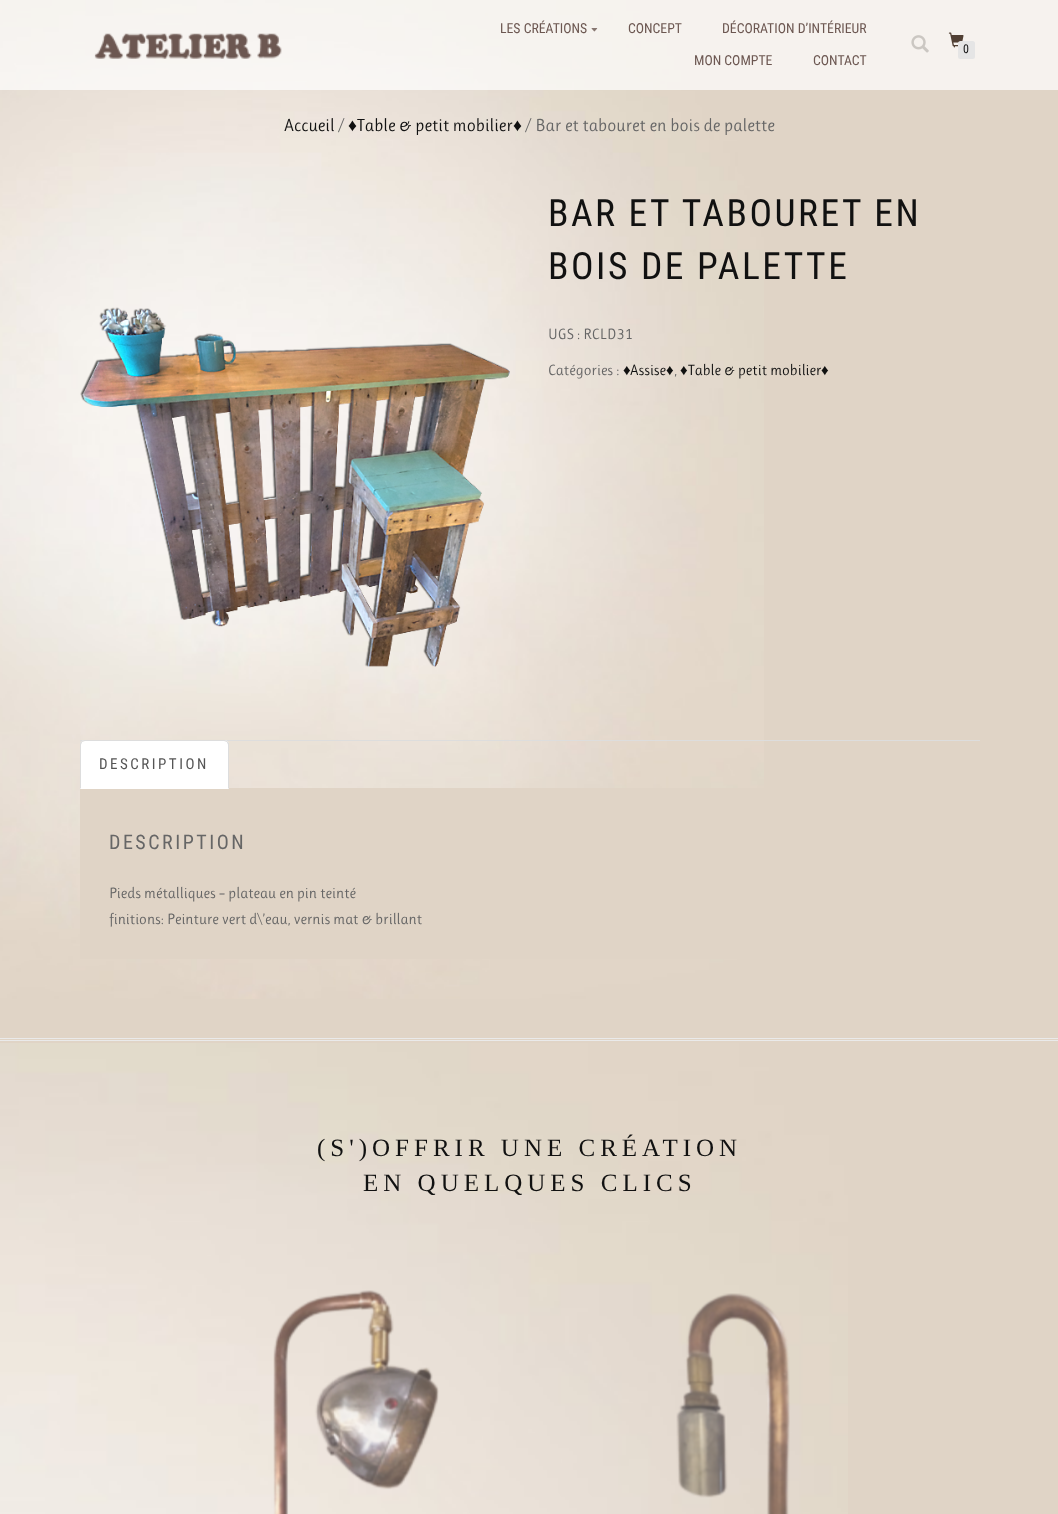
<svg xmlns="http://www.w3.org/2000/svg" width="1058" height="1514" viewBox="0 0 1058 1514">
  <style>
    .t1 { font: 13.75px Roboto Condensed; fill: #6c5751; }
    .t2 { font: 12px Roboto Condensed; fill: #111; }
    .t3 { font: 17.5px Ruluko; fill: #111; }
    .t4 { font: 17.5px Ruluko; fill: #666; }
    .t5 { font: 17.5px Liberation Serif; fill: #111; }
    .t6 { font: 37.5px Roboto Condensed; letter-spacing: 2.5px; fill: #111; }
    .t7 { font: 15px Ruluko; fill: #666; }
    .t8 { font: 15px Liberation Serif; fill: #111; }
    .t9 { font: 15px Ruluko; fill: #111; }
    .t10 { font: 15px Roboto Condensed; letter-spacing: 2.5px; fill: #555; }
    .t11 { font: 20px Roboto Condensed; letter-spacing: 2.5px; fill: #666; }
    .t12 { font: 25px Liberation Serif; letter-spacing: 5px; fill: #111; }
  </style>
  <rect width="100%" height="100%" fill="#e0d4c6"/>
  <image x="0" y="0" width="764" height="999" href="images/5.png"/>
  <rect x="0" y="0" width="1058" height="90" fill="#ffffffb3"/>
  <image x="94" y="33" width="188" height="26" href="images/1.png"/>
  <text x="500" y="33" class="t1">LES CRÉATIONS</text>
  <image x="591" y="28" width="7" height="4" href="images/2.png"/>
  <text x="628" y="33" class="t1">CONCEPT</text>
  <text x="722" y="33" class="t1">DÉCORATION D’INTÉRIEUR</text>
  <text x="694" y="65" class="t1">MON COMPTE</text>
  <text x="813" y="65" class="t1">CONTACT</text>
  <image x="911" y="35" width="18" height="18" href="images/3.png"/>
  <image x="948" y="32" width="16" height="16" href="images/4.png"/>
  <rect x="958" y="41" width="17" height="18" rx="2.5" fill="#e5e5e5"/>
  <text x="963" y="53" class="t2">0</text>
  <text x="284" y="131" class="t3">Accueil</text>
  <text x="338" y="131" class="t4">/</text>
  <text x="348" y="131" class="t5">♦</text>
  <text x="357" y="131" class="t3">Table &amp; petit mobilier</text>
  <text x="513" y="131" class="t5">♦</text>
  <text x="525" y="131" class="t4">/ Bar et tabouret en bois de palette</text>
  <text x="548" y="226" class="t6">BAR ET TABOURET EN</text>
  <text x="548" y="279" class="t6">BOIS DE PALETTE</text>
  <text x="548" y="339" class="t7">UGS : RCLD31</text>
  <text x="548" y="375" class="t7">Catégories :</text>
  <text x="623" y="375" class="t8">♦</text>
  <text x="630" y="375" class="t9">Assise</text>
  <text x="666" y="375" class="t8">♦</text>
  <text x="674" y="375" class="t7">,</text>
  <text x="680" y="375" class="t8">♦</text>
  <text x="688" y="375" class="t9">Table &amp; petit mobilier</text>
  <text x="821" y="375" class="t8">♦</text>
  <image x="80" y="307" width="430" height="360" href="images/6.png"/>
  <rect x="80" y="740" width="900" height="1" fill="#ddd"/>
  <rect x="80" y="788" width="684" height="171" fill="#e0d4c6"/>
  <path d="M85 740H224C227 740 229 742 229 745V789H80V745C80 742 82 740 85 740Z" fill="#fff"/>
  <path d="M85 740C84 740 82 740 81 741L82 742L85 741H224L227 742V741C227 740 225 740 224 740Z" fill="#ddd"/>
  <path d="M227 741L229 743V789L228 788V745C228 744 227 743 227 742Z" fill="#ddd"/>
  <path d="M80 789L81 788V745C81 744 82 743 82 742L81 741C80 742 80 744 80 745Z" fill="#ddd"/>
  <text x="99" y="769" class="t10">DESCRIPTION</text>
  <text x="109" y="849" class="t11">DESCRIPTION</text>
  <text x="109" y="898" class="t7">Pieds métalliques – plateau en pin teinté</text>
  <text x="109" y="924" class="t7">finitions: Peinture vert d\’eau, vernis mat &amp; brillant</text>
  <rect x="0" y="1038" width="1058" height="1" fill="#eaeaea"/>
  <rect x="0" y="1040" width="1058" height="1" fill="#eaeaea"/>
  <image x="0" y="1043" width="848" height="471" href="images/7.png"/>
  <text x="317" y="1156" class="t12">(S')OFFRIR UNE CRÉATION</text>
  <text x="363" y="1191" class="t12">EN QUELQUES CLICS</text>
  <image x="273" y="1290" width="166" height="224" href="images/8.png"/>
  <image x="676" y="1293" width="114" height="221" href="images/9.png"/>
</svg>
